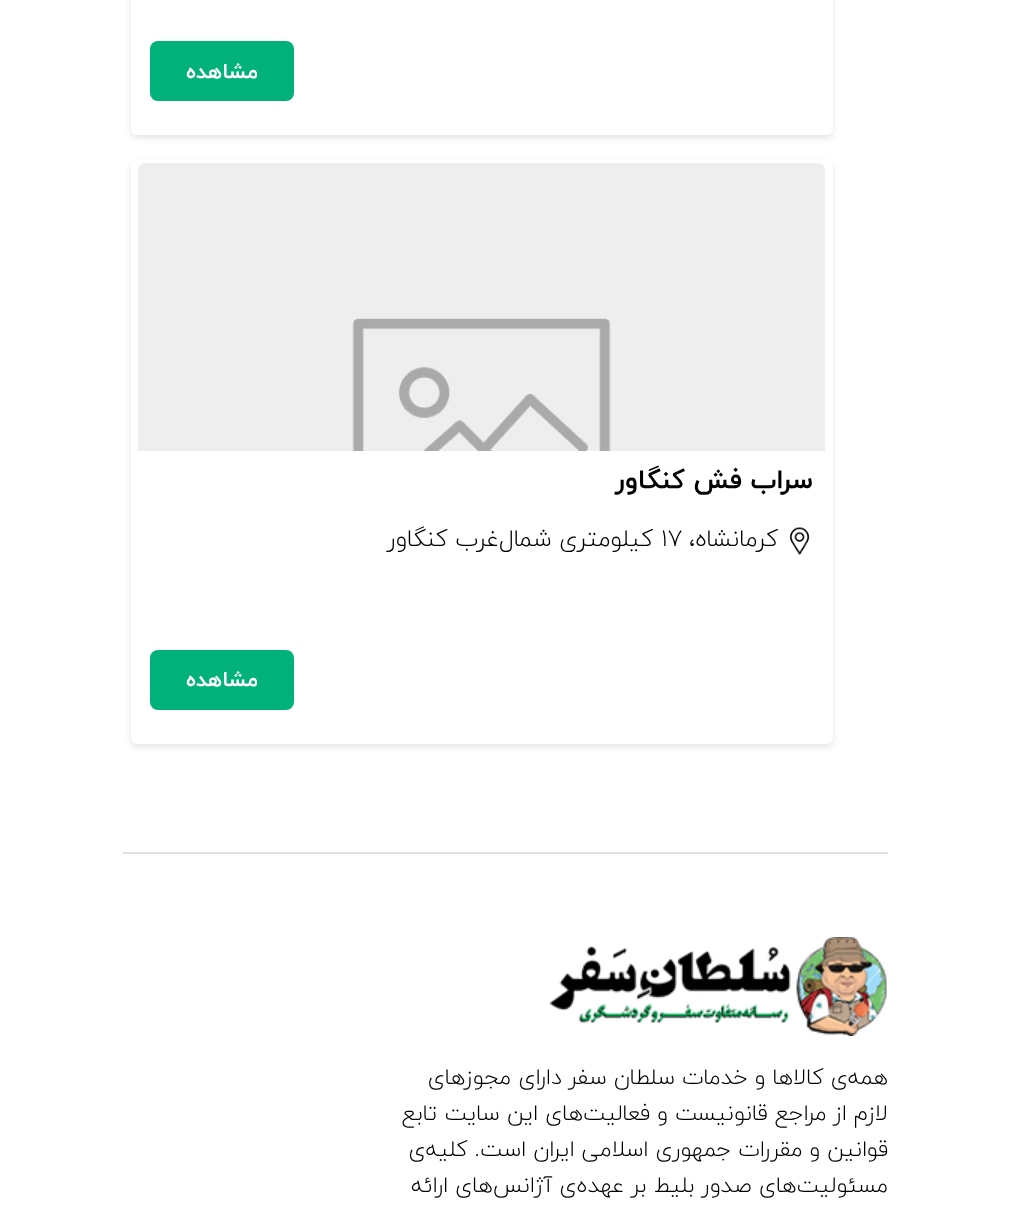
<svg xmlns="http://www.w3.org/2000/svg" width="1011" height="1224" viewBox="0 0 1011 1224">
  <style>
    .t1 { font: bold 21.5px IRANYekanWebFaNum; direction: rtl; fill: #fff; }
    .t2 { font: bold 27px IRANYekanWebFaNum; direction: rtl; fill: #000; }
    .t3 { font: 300 24px IRANYekanWebFaNum; direction: rtl; fill: #000; }
    .t4 { font: 300 24px IRANYekanWebFaNum; fill: #000; }
    .t5 { font: 300 22.5px IRANYekanWebFaNum; direction: rtl; fill: #000; }
  </style>
  <rect width="100%" height="100%" fill="#fff"/>
  <rect x="131" y="-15" width="702" height="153" rx="6" fill="#0000001a" filter="blur(3px)"/>
  <rect x="131" y="-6" width="702" height="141" rx="6" fill="#fff"/>
  <rect x="150" y="41" width="144" height="60" rx="8" fill="#00b17a"/>
  <text x="258" y="78" class="t1">مشاهده</text>
  <rect x="131" y="162" width="702" height="585" rx="6" fill="#0000001a" filter="blur(3px)"/>
  <rect x="131" y="159" width="702" height="585" rx="6" fill="#fff"/>
  <image x="138" y="163" width="687" height="288" href="images/1.png"/>
  <text x="813" y="488" class="t2">سراب فش کنگاور</text>
  <image x="789" y="527" width="21" height="28" href="images/2.png"/>
  <text x="778" y="546" class="t3">کرمانشاه،</text>
  <text x="661" y="546" class="t4">۱۷</text>
  <text x="653" y="546" class="t3">کیلومتری شمال‌غرب کنگاور</text>
  <rect x="150" y="650" width="144" height="60" rx="8" fill="#00b17a"/>
  <text x="258" y="686" class="t1">مشاهده</text>
  <rect x="123" y="852" width="765" height="2" fill="#e0e0e0"/>
  <image x="549" y="937" width="338" height="99" href="images/3.png"/>
  <text x="888" y="1084" class="t5">همه‌ی کالاها و خدمات سلطان سفر دارای مجوزهای</text>
  <text x="888" y="1120" class="t5">لازم از مراجع قانونیست و فعالیت‌های این سایت تابع</text>
  <text x="888" y="1156" class="t5">قوانین و مقررات جمهوری اسلامی ایران است. کلیه‌ی</text>
  <text x="888" y="1192" class="t5">مسئولیت‌های صدور بلیط بر عهده‌ی آژانس‌های ارائه</text>
</svg>
